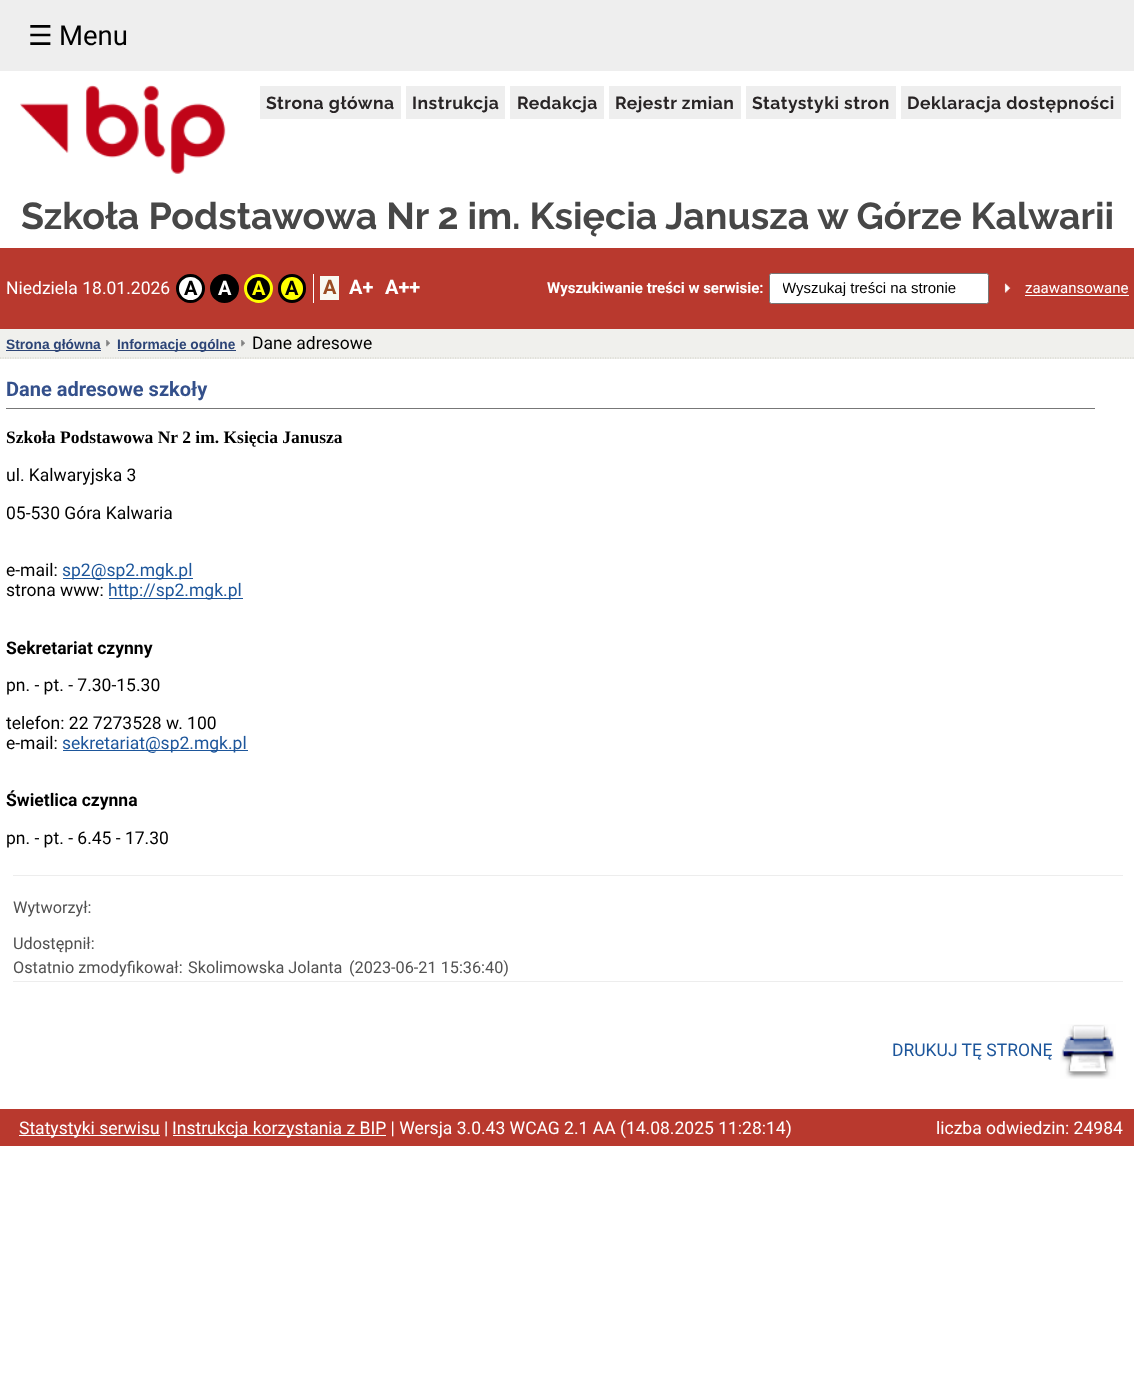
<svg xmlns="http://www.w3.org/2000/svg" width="1134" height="1390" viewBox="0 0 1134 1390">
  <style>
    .t1 { font: 27.5px DejaVu Sans; fill: #000; }
    .t2 { font: 27.5px Roboto; fill: #000; }
    .t3 { font: bold 17.5px Raleway; letter-spacing: 0.5px; fill: #282425; }
    .t4 { font: bold 37.5px Raleway; fill: #474747; }
    .t5 { font: 17.5px Roboto; fill: #fff; }
    .t6 { font: bold 20px Roboto; fill: #000; }
    .t7 { font: bold 20px Roboto; fill: #fff; }
    .t8 { font: bold 20px Roboto; fill: #ff0; }
    .t9 { font: bold 20px Roboto; fill: #9a4d22; }
    .t10 { font: bold 15px Roboto; fill: #fff; }
    .t11 { font: 15px Liberation Sans; fill: #000; }
    .t12 { font: 15px Roboto; fill: #fff; }
    .t13 { font: bold 13.75px Liberation Sans; fill: #2c4476; }
    .t14 { font: 17.5px Roboto; fill: #000; }
    .t15 { font: bold 20px Roboto; fill: #34508b; }
    .t16 { font: bold 17.5px Liberation Serif; fill: #000; }
    .t17 { font: 17.5px Roboto; fill: #1d569b; }
    .t18 { font: bold 17.5px Roboto; fill: #000; }
    .t19 { font: 16.25px Roboto; fill: #515151; }
  </style>
  <defs>
    <clipPath id="clip1"><rect x="783" y="280" width="193" height="18"/></clipPath>
  </defs>
  <rect width="100%" height="100%" fill="#fff"/>
  <rect x="0" y="0" width="1134" height="71" fill="#eee"/>
  <text x="28" y="45" class="t1">☰</text>
  <text x="59" y="45" class="t2">Menu</text>
  <image x="20" y="85" width="206" height="89" href="images/1.png"/>
  <rect x="260" y="86" width="141" height="33" fill="#eee"/>
  <text x="266" y="109" class="t3">Strona główna</text>
  <rect x="406" y="86" width="99" height="33" fill="#eee"/>
  <text x="412" y="109" class="t3">Instrukcja</text>
  <rect x="510" y="86" width="94" height="33" fill="#eee"/>
  <text x="517" y="109" class="t3">Redakcja</text>
  <rect x="609" y="86" width="132" height="33" fill="#eee"/>
  <text x="615" y="109" class="t3">Rejestr zmian</text>
  <rect x="746" y="86" width="150" height="33" fill="#eee"/>
  <text x="752" y="109" class="t3">Statystyki stron</text>
  <rect x="901" y="86" width="220" height="33" fill="#eee"/>
  <text x="907" y="109" class="t3">Deklaracja dostępności</text>
  <text x="21" y="229" class="t4">Szkoła Podstawowa Nr 2 im. Księcia Janusza w Górze Kalwarii</text>
  <rect x="0" y="248" width="1134" height="81" fill="#b9392e"/>
  <text x="6" y="294" class="t5">Niedziela 18.01.2026</text>
  <rect x="313" y="274" width="1" height="29" fill="#fff"/>
  <circle cx="190.5" cy="288.5" r="13" fill="#fff" stroke="#000" stroke-width="3"/>
  <text x="184" y="295" class="t6">A</text>
  <circle cx="224.5" cy="288.5" r="13" fill="#000" stroke="#000" stroke-width="3"/>
  <text x="218" y="295" class="t7">A</text>
  <circle cx="258.5" cy="288.5" r="13" fill="#000" stroke="#ff0" stroke-width="3"/>
  <text x="252" y="295" class="t8">A</text>
  <rect x="279.5" y="275.5" width="25" height="26" rx="12.5" fill="#ff0" stroke="#000" stroke-width="3"/>
  <text x="285" y="295" class="t6">A</text>
  <rect x="320" y="276" width="19" height="24" fill="#f8f9f1"/>
  <text x="323" y="294" class="t9">A</text>
  <text x="349" y="294" class="t7">A+</text>
  <text x="385" y="294" class="t7">A++</text>
  <text x="547" y="293" class="t10">Wyszukiwanie treści w serwisie:</text>
  <rect x="769.5" y="273.5" width="219" height="30" rx="2" fill="#fff" stroke="#767676"/>
  <g clip-path="url(#clip1)">
    <text x="782" y="293" class="t11">Wyszukaj treści na stronie</text>
  </g>
  <image x="1004" y="283" width="7" height="10" href="images/2.png"/>
  <text x="1025" y="293" class="t12">zaawansowane</text>
  <rect x="1025" y="295" width="104" height="1" fill="#fff"/>
  <rect x="0" y="329" width="1134" height="30" fill="#f0f0ed"/>
  <path d="M0 358H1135" fill="none" stroke="#cfcfc6" stroke-width="1.2" stroke-dasharray="1.25 1.25"/>
  <rect x="6" y="350" width="95" height="1" fill="#2c4476"/>
  <text x="6" y="349" class="t13">Strona główna</text>
  <image x="106" y="340" width="4" height="7" href="images/3.png"/>
  <rect x="118" y="350" width="118" height="1" fill="#2c4476"/>
  <text x="117" y="349" class="t13">Informacje ogólne</text>
  <image x="241" y="340" width="4" height="7" href="images/3.png"/>
  <text x="252" y="349" class="t14">Dane adresowe</text>
  <rect x="6" y="408" width="1089" height="1" fill="#777"/>
  <text x="6" y="396" class="t15">Dane adresowe szkoły</text>
  <text x="6" y="443" class="t16">Szkoła Podstawowa Nr 2 im. Księcia Janusza</text>
  <text x="6" y="481" class="t14">ul. Kalwaryjska 3</text>
  <text x="6" y="519" class="t14">05-530 Góra Kalwaria</text>
  <text x="6" y="576" class="t14">e-mail:</text>
  <rect x="63" y="578" width="130" height="1" fill="#1d569b"/>
  <text x="62" y="576" class="t17">sp2@sp2.mgk.pl</text>
  <text x="6" y="596" class="t14">strona www:</text>
  <rect x="109" y="598" width="134" height="1" fill="#1d569b"/>
  <text x="108" y="596" class="t17">http://sp2.mgk.pl</text>
  <text x="6" y="654" class="t18">Sekretariat czynny</text>
  <text x="6" y="691" class="t14">pn. - pt. - 7.30-15.30</text>
  <text x="6" y="729" class="t14">telefon: 22 7273528 w. 100</text>
  <text x="6" y="749" class="t14">e-mail:</text>
  <rect x="63" y="750" width="185" height="1" fill="#1d569b"/>
  <text x="62" y="749" class="t17">sekretariat@sp2.mgk.pl</text>
  <text x="6" y="806" class="t18">Świetlica czynna</text>
  <text x="6" y="844" class="t14">pn. - pt. - 6.45 - 17.30</text>
  <rect x="13" y="875" width="1110" height="1" fill="#ededed"/>
  <text x="13" y="913" class="t19">Wytworzył:</text>
  <text x="13" y="949" class="t19">Udostępnił:</text>
  <text x="13" y="973" class="t19">Ostatnio zmodyfikował:</text>
  <text x="188" y="973" class="t19">Skolimowska Jolanta</text>
  <text x="349" y="973" class="t19">(2023-06-21 15:36:40)</text>
  <rect x="13" y="981" width="1110" height="1" fill="#ededed"/>
  <text x="892" y="1056" class="t17">DRUKUJ TĘ STRONĘ</text>
  <image x="1060" y="1024" width="56" height="55" href="images/4.png"/>
  <rect x="0" y="1109" width="1134" height="37" fill="#b9392e"/>
  <rect x="19" y="1135" width="141" height="1" fill="#fff"/>
  <text x="19" y="1134" class="t5">Statystyki serwisu |</text>
  <rect x="173" y="1135" width="213" height="1" fill="#fff"/>
  <text x="172" y="1134" class="t5">Instrukcja korzystania z BIP | Wersja 3.0.43 WCAG 2.1 AA (14.08.2025 11:28:14)</text>
  <text x="936" y="1134" class="t5">liczba odwiedzin: 24984</text>
</svg>
